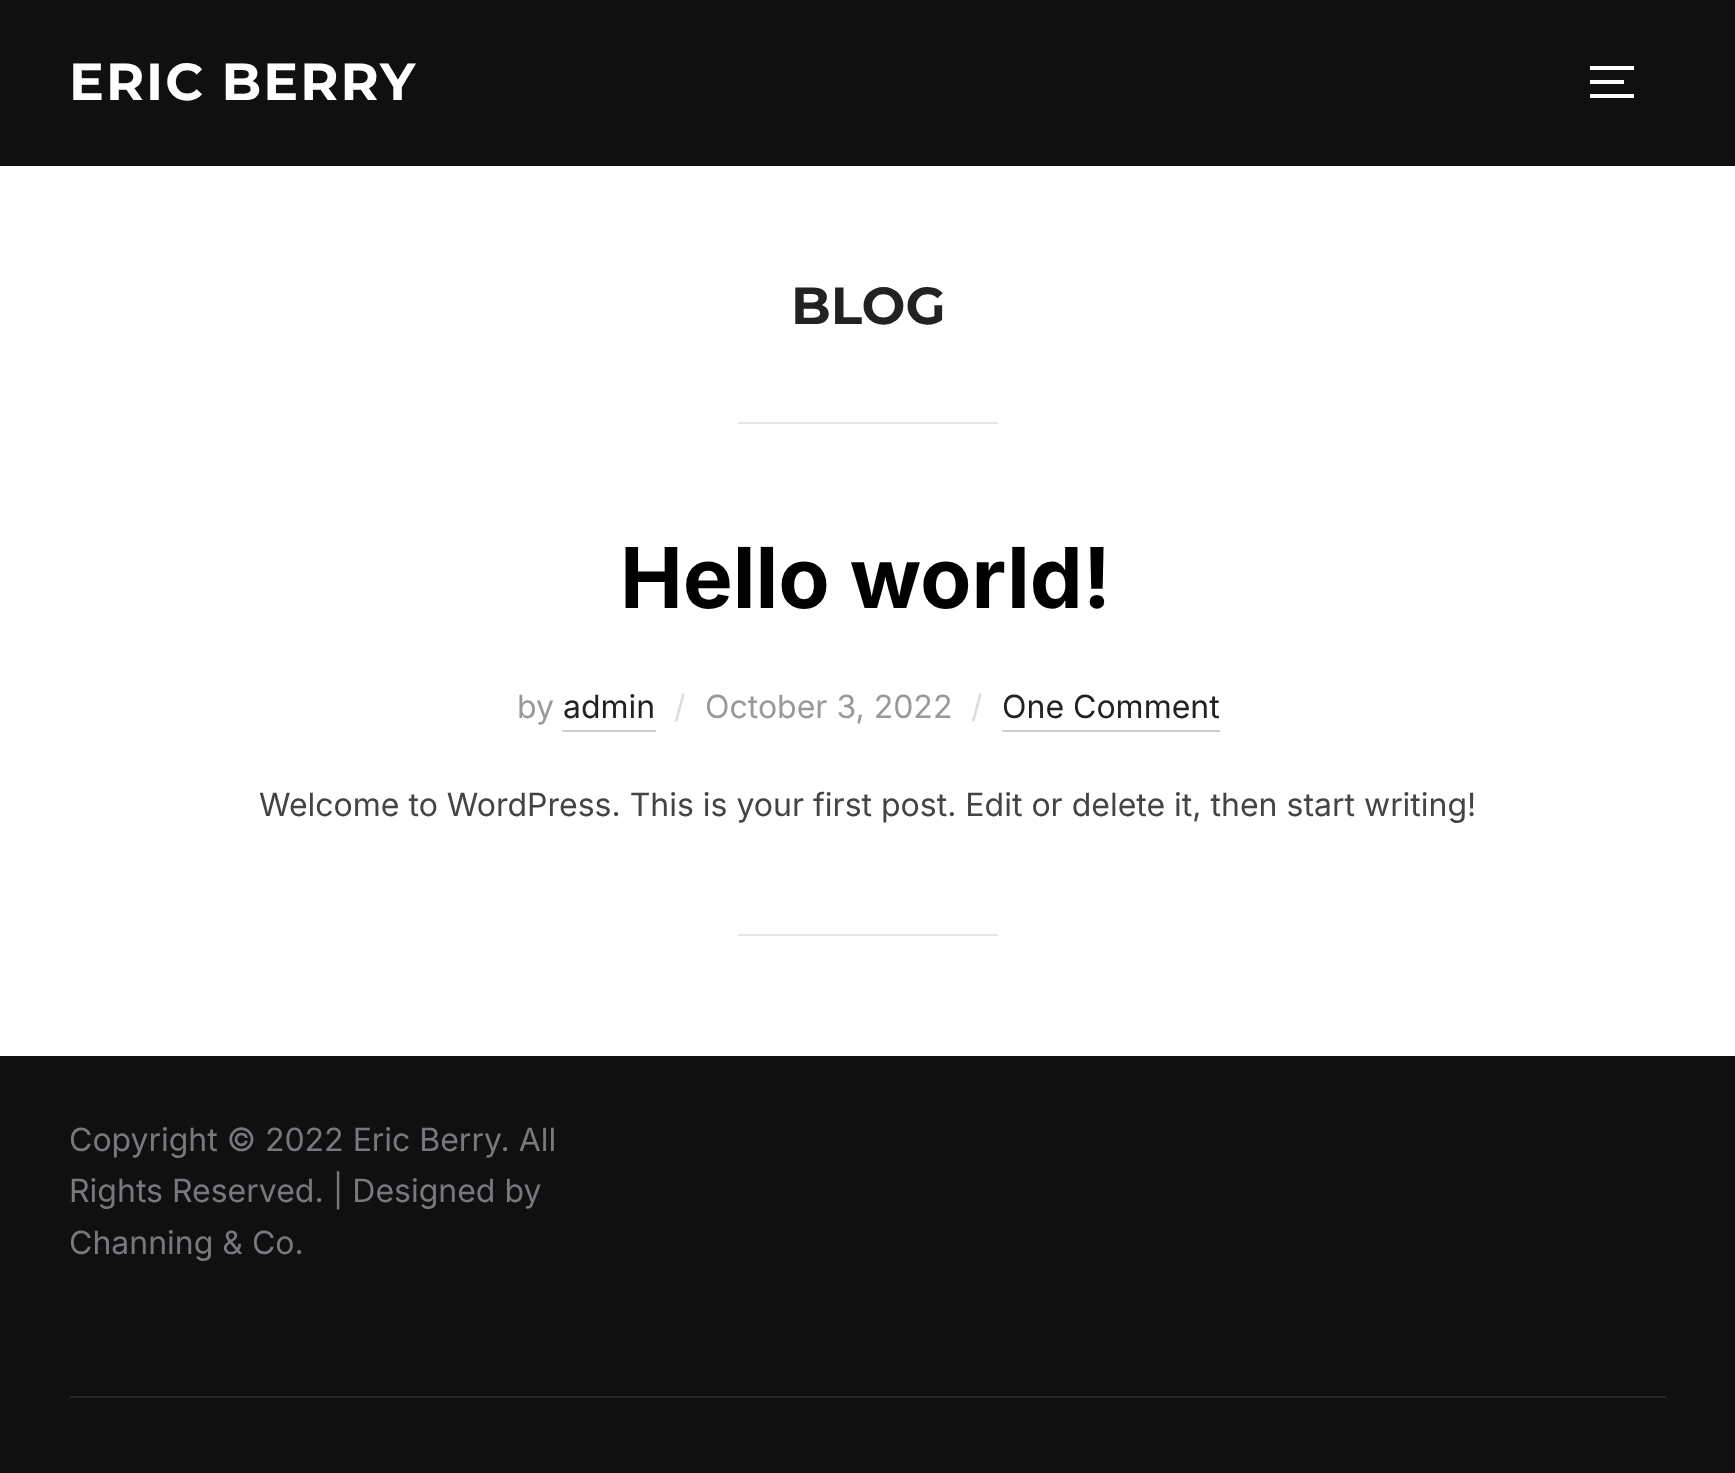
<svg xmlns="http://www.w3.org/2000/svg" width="1735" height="1473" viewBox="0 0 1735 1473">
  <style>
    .t1 { font: bold 52px Montserrat; letter-spacing: 2px; fill: #fff; }
    .t2 { font: bold 52px Montserrat; fill: #222; }
    .t3 { font: bold 84px Inter; fill: #000; }
    .t4 { font: 32px Inter; fill: #999; }
    .t5 { font: 32px Inter; fill: #222; }
    .t6 { font: 32px Inter; fill: #dbdddd; }
    .t7 { font: 32px Inter; fill: #444; }
    .t8 { font: 32px Inter; fill: #78787f; }
  </style>
  <rect width="100%" height="100%" fill="#fff"/>
  <rect x="0" y="0" width="1735" height="166" fill="#101010"/>
  <text x="69" y="100" class="t1">ERIC BERRY</text>
  <rect x="1590" y="66" width="44" height="4" fill="#fff"/>
  <rect x="1590" y="80" width="34" height="4" fill="#fff"/>
  <rect x="1590" y="94" width="44" height="4" fill="#fff"/>
  <text x="791" y="324" class="t2">BLOG</text>
  <rect x="738" y="422" width="260" height="2" fill="#e6e6e6"/>
  <text x="620" y="608" class="t3">Hello world!</text>
  <text x="517" y="718" class="t4">by</text>
  <text x="563" y="718" class="t5">admin</text>
  <rect x="562" y="730" width="94" height="2" fill="#ccc"/>
  <text x="674" y="718" class="t6">/</text>
  <text x="705" y="718" class="t4">October 3, 2022</text>
  <text x="971" y="718" class="t6">/</text>
  <text x="1002" y="718" class="t5">One Comment</text>
  <rect x="1002" y="730" width="218" height="2" fill="#ccc"/>
  <text x="259" y="816" class="t7">Welcome to WordPress. This is your first post. Edit or delete it, then start writing!</text>
  <rect x="738" y="934" width="260" height="2" fill="#e6e6e6"/>
  <rect x="0" y="1056" width="1735" height="417" fill="#101010"/>
  <text x="69" y="1151" class="t8">Copyright © 2022 Eric Berry. All</text>
  <text x="69" y="1202" class="t8">Rights Reserved. | Designed by</text>
  <text x="69" y="1254" class="t8">Channing &amp; Co.</text>
  <rect x="70" y="1396" width="1596" height="2" fill="#282828"/>
</svg>
